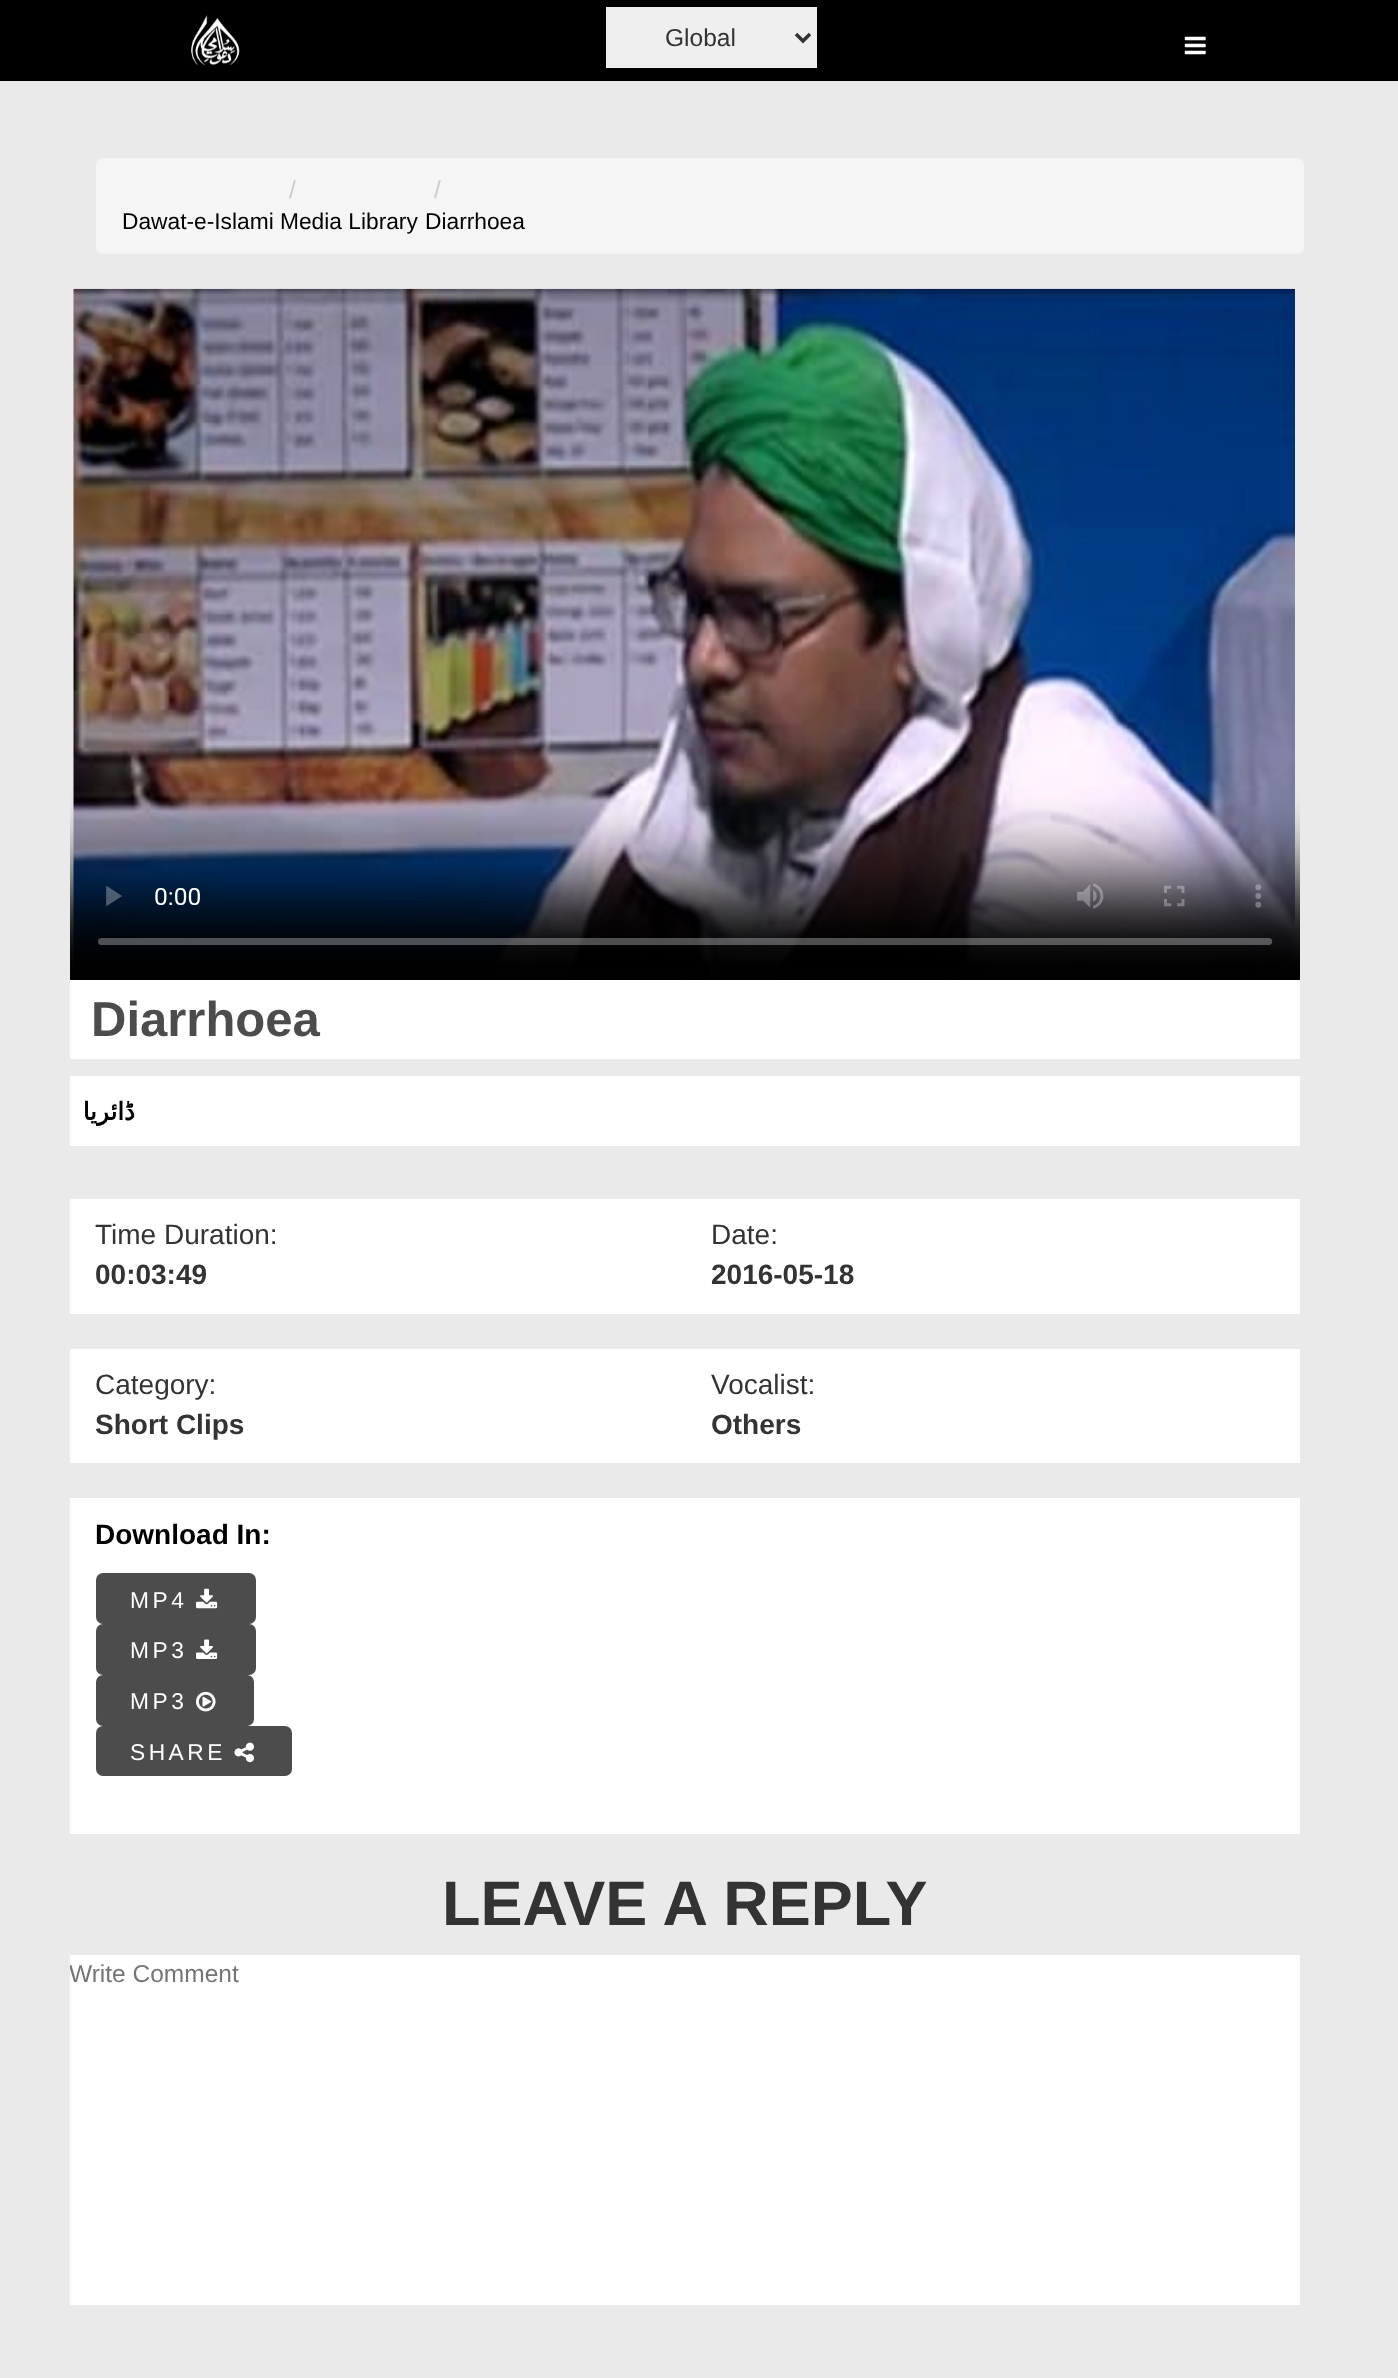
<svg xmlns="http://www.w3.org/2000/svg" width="1398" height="2378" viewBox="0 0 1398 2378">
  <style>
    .t1 { font: 24.5px Liberation Sans; fill: #333; }
    .t2 { font: 22.75px Liberation Sans; fill: #000; }
    .t3 { font: 24.5px Liberation Sans; fill: #ccc; }
    .t4 { font: bold 49px Liberation Sans; fill: #4c4c4c; }
    .t5 { font: bold 24.5px DejaVu Sans; direction: rtl; fill: #000; }
    .t6 { font: 28px Liberation Sans; fill: #333; }
    .t7 { font: bold 28px Liberation Sans; fill: #333; }
    .t8 { font: bold 28px Liberation Sans; fill: #000; }
    .t9 { font: 22.75px Liberation Sans; letter-spacing: 3.5px; fill: #fff; }
    .t10 { font: bold 63px Liberation Sans; fill: #333; }
    .t11 { font: 24.5px Liberation Sans; fill: #757575; }
  </style>
  <defs>
    <clipPath id="clip1"><rect x="70" y="1955" width="1230" height="350"/></clipPath>
  </defs>
  <rect width="100%" height="100%" fill="#eaeaea"/>
  <rect x="0" y="0" width="1398" height="81" fill="#000"/>
  <image x="191" y="15" width="49" height="51" href="images/1.png"/>
  <rect x="606" y="7" width="211" height="61" fill="#efefef"/>
  <path d="M796 34L803 41L810 34" fill="none" stroke="#333" stroke-width="3.5"/>
  <text x="665" y="46" class="t1">Global</text>
  <image x="1184" y="36" width="22" height="19" href="images/2.png"/>
  <rect x="96" y="158" width="1208" height="96" rx="7" fill="#f5f5f5"/>
  <text x="122" y="229" class="t2">Dawat-e-Islami</text>
  <text x="289" y="198" class="t3">/</text>
  <text x="280" y="229" class="t2">Media Library</text>
  <text x="434" y="198" class="t3">/</text>
  <text x="425" y="229" class="t2">Diarrhoea</text>
  <image x="70" y="288" width="1230" height="692" href="images/3.png"/>
  <rect x="70" y="980" width="1230" height="79" fill="#fff"/>
  <text x="91" y="1036" class="t4">Diarrhoea</text>
  <rect x="70" y="1076" width="1230" height="70" fill="#fff"/>
  <text x="135" y="1120" class="t5">ڈائریا</text>
  <rect x="70" y="1199" width="1230" height="115" fill="#fff"/>
  <text x="95" y="1244" class="t6">Time Duration:</text>
  <text x="95" y="1284" class="t7">00:03:49</text>
  <text x="711" y="1244" class="t6">Date:</text>
  <text x="711" y="1284" class="t7">2016-05-18</text>
  <rect x="70" y="1349" width="1230" height="114" fill="#fff"/>
  <text x="95" y="1394" class="t6">Category:</text>
  <text x="95" y="1434" class="t7">Short Clips</text>
  <text x="711" y="1394" class="t6">Vocalist:</text>
  <text x="711" y="1434" class="t7">Others</text>
  <rect x="70" y="1498" width="1230" height="336" fill="#fff"/>
  <text x="95" y="1544" class="t8">Download In:</text>
  <rect x="96" y="1573" width="160" height="51" rx="7" fill="#4c4c4c"/>
  <text x="130" y="1608" class="t9">MP4</text>
  <image x="196" y="1588" width="22" height="21" href="images/4.png"/>
  <rect x="96" y="1624" width="160" height="51" rx="7" fill="#4c4c4c"/>
  <text x="130" y="1658" class="t9">MP3</text>
  <image x="196" y="1639" width="22" height="20" href="images/5.png"/>
  <rect x="96" y="1675" width="158" height="51" rx="7" fill="#4c4c4c"/>
  <text x="130" y="1709" class="t9">MP3</text>
  <image x="196" y="1691" width="20" height="21" href="images/6.png"/>
  <rect x="96" y="1726" width="196" height="50" rx="7" fill="#4c4c4c"/>
  <text x="130" y="1760" class="t9">SHARE</text>
  <image x="234" y="1742" width="20" height="21" href="images/7.png"/>
  <text x="442" y="1925" class="t10">LEAVE A REPLY</text>
  <rect x="70" y="1955" width="1230" height="350" fill="#fff"/>
  <g clip-path="url(#clip1)">
    <text x="69" y="1982" class="t11">Write Comment</text>
  </g>
</svg>
